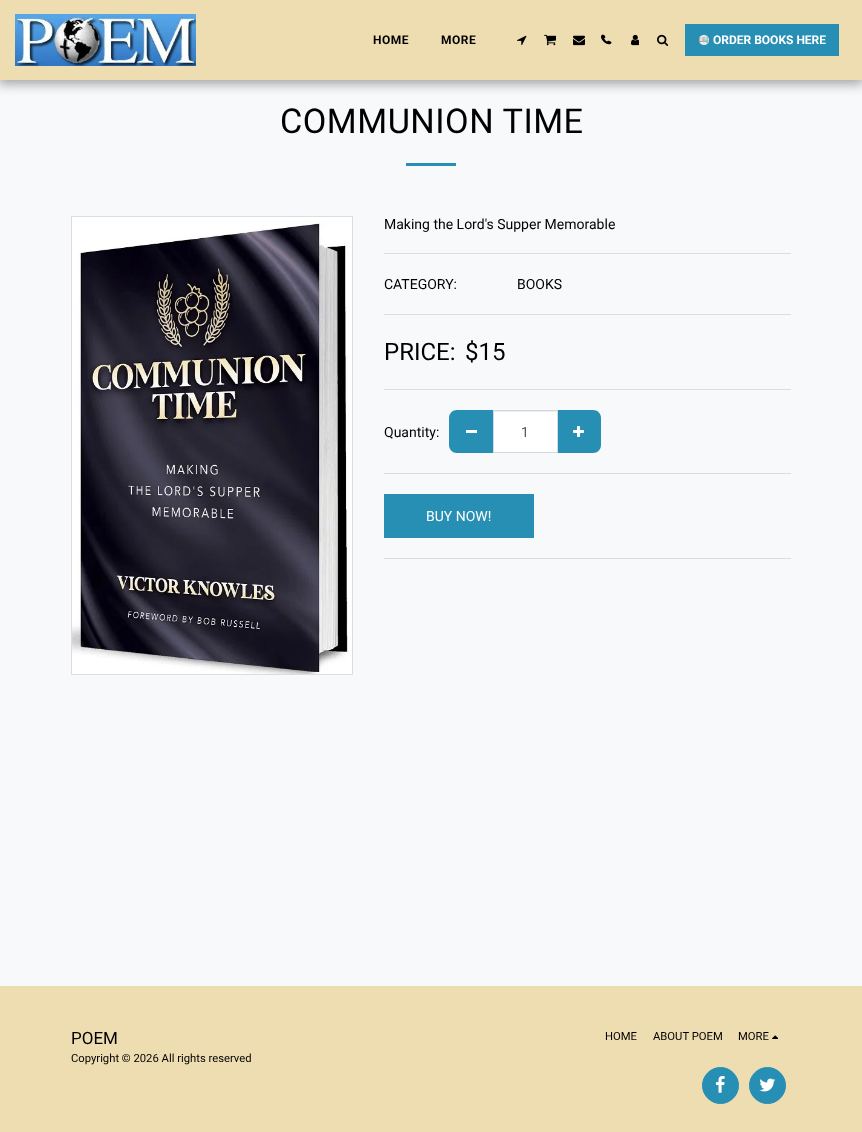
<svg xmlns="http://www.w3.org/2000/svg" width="862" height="1132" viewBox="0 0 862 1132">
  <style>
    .t1 { font: bold 12px Roboto; letter-spacing: 0.5px; fill: #000; }
    .t2 { font: bold 12px Roboto; fill: #fff; }
    .t3 { font: 34.25px Roboto; letter-spacing: 0.5px; fill: #000; }
    .t4 { font: 14px Roboto; fill: #000; }
    .t5 { font: 24px Roboto; fill: #000; }
    .t6 { font: 14px Roboto; fill: #555; }
    .t7 { font: 14px Roboto; fill: #fff; }
    .t8 { font: 17px Roboto; fill: #000; }
    .t9 { font: 11.25px Roboto; fill: #000; }
  </style>
  <rect width="100%" height="100%" fill="#f8f9fb"/>
  <rect x="-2" y="0" width="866" height="84" fill="#00000059" filter="blur(6px)"/>
  <rect x="0" y="0" width="862" height="80" fill="#efddb2"/>
  <image x="15" y="14" width="181" height="52" href="images/1.png"/>
  <text x="373" y="44" class="t1">HOME</text>
  <text x="441" y="44" class="t1">MORE</text>
  <image x="517" y="35" width="10" height="11" href="images/2.png"/>
  <image x="544" y="34" width="12" height="12" href="images/3.png"/>
  <image x="573" y="35" width="12" height="11" href="images/4.png"/>
  <image x="602" y="34" width="10" height="11" href="images/5.png"/>
  <image x="601" y="34" width="10" height="10" href="images/6.png"/>
  <image x="631" y="34" width="8" height="12" href="images/7.png"/>
  <image x="657" y="34" width="12" height="12" href="images/8.png"/>
  <rect x="685" y="24" width="154" height="32" fill="#288fb4"/>
  <image x="699" y="35" width="10" height="10" href="images/9.png"/>
  <text x="713" y="44" class="t2">ORDER BOOKS HERE</text>
  <text x="280" y="133" class="t3">COMMUNION TIME</text>
  <rect x="406" y="163" width="50" height="3" fill="#288fb4"/>
  <rect x="71.5" y="216.5" width="281" height="458" fill="none" stroke="#ddd"/>
  <image x="72" y="217" width="280" height="457" href="images/10.png"/>
  <text x="384" y="229" class="t4">Making the Lord's Supper Memorable</text>
  <rect x="384" y="253" width="407" height="1" fill="#ddd"/>
  <text x="384" y="289" class="t4">CATEGORY:</text>
  <text x="517" y="289" class="t4">BOOKS</text>
  <rect x="384" y="314" width="407" height="1" fill="#ddd"/>
  <text x="384" y="360" class="t5">PRICE:</text>
  <text x="465" y="360" class="t5">$15</text>
  <rect x="384" y="389" width="407" height="1" fill="#ddd"/>
  <text x="384" y="437" class="t4">Quantity:</text>
  <path d="M457 410H494V453H457C452.5 453 449 449.5 449 445V418C449 413.5 452.5 410 457 410Z" fill="#288fb4"/>
  <rect x="466" y="430" width="11" height="3" fill="#fff"/>
  <rect x="494" y="412" width="63" height="40" fill="#fff"/>
  <rect x="494" y="411" width="63" height="1" fill="#ececec"/>
  <path d="M557 410H593C597.5 410 601 413.5 601 418V445C601 449.5 597.5 453 593 453H557Z" fill="#288fb4"/>
  <rect x="493.5" y="410.5" width="64" height="42" fill="none" stroke="#d4d7e5"/>
  <text x="521" y="437" class="t6">1</text>
  <image x="573" y="426" width="11" height="11" href="images/11.png"/>
  <rect x="384" y="473" width="407" height="1" fill="#ddd"/>
  <rect x="384" y="494" width="150" height="44" fill="#288fb4"/>
  <text x="426" y="521" class="t7">BUY NOW!</text>
  <rect x="384" y="558" width="407" height="1" fill="#ddd"/>
  <rect x="0" y="986" width="862" height="146" fill="#efddb2"/>
  <text x="71" y="1044" class="t8">POEM</text>
  <text x="71" y="1062" class="t9">Copyright © 2026 All rights reserved</text>
  <text x="605" y="1040" class="t9">HOME</text>
  <text x="653" y="1040" class="t9">ABOUT POEM</text>
  <text x="738" y="1040" class="t9">MORE</text>
  <image x="772" y="1035" width="6" height="4" href="images/12.png"/>
  <circle cx="720.5" cy="1085.5" r="18" fill="#288fb4" stroke="#288fb4"/>
  <image x="715" y="1076" width="10" height="17" href="images/13.png"/>
  <circle cx="767.5" cy="1085.5" r="18" fill="#288fb4" stroke="#288fb4"/>
  <image x="759" y="1078" width="17" height="14" href="images/14.png"/>
</svg>
